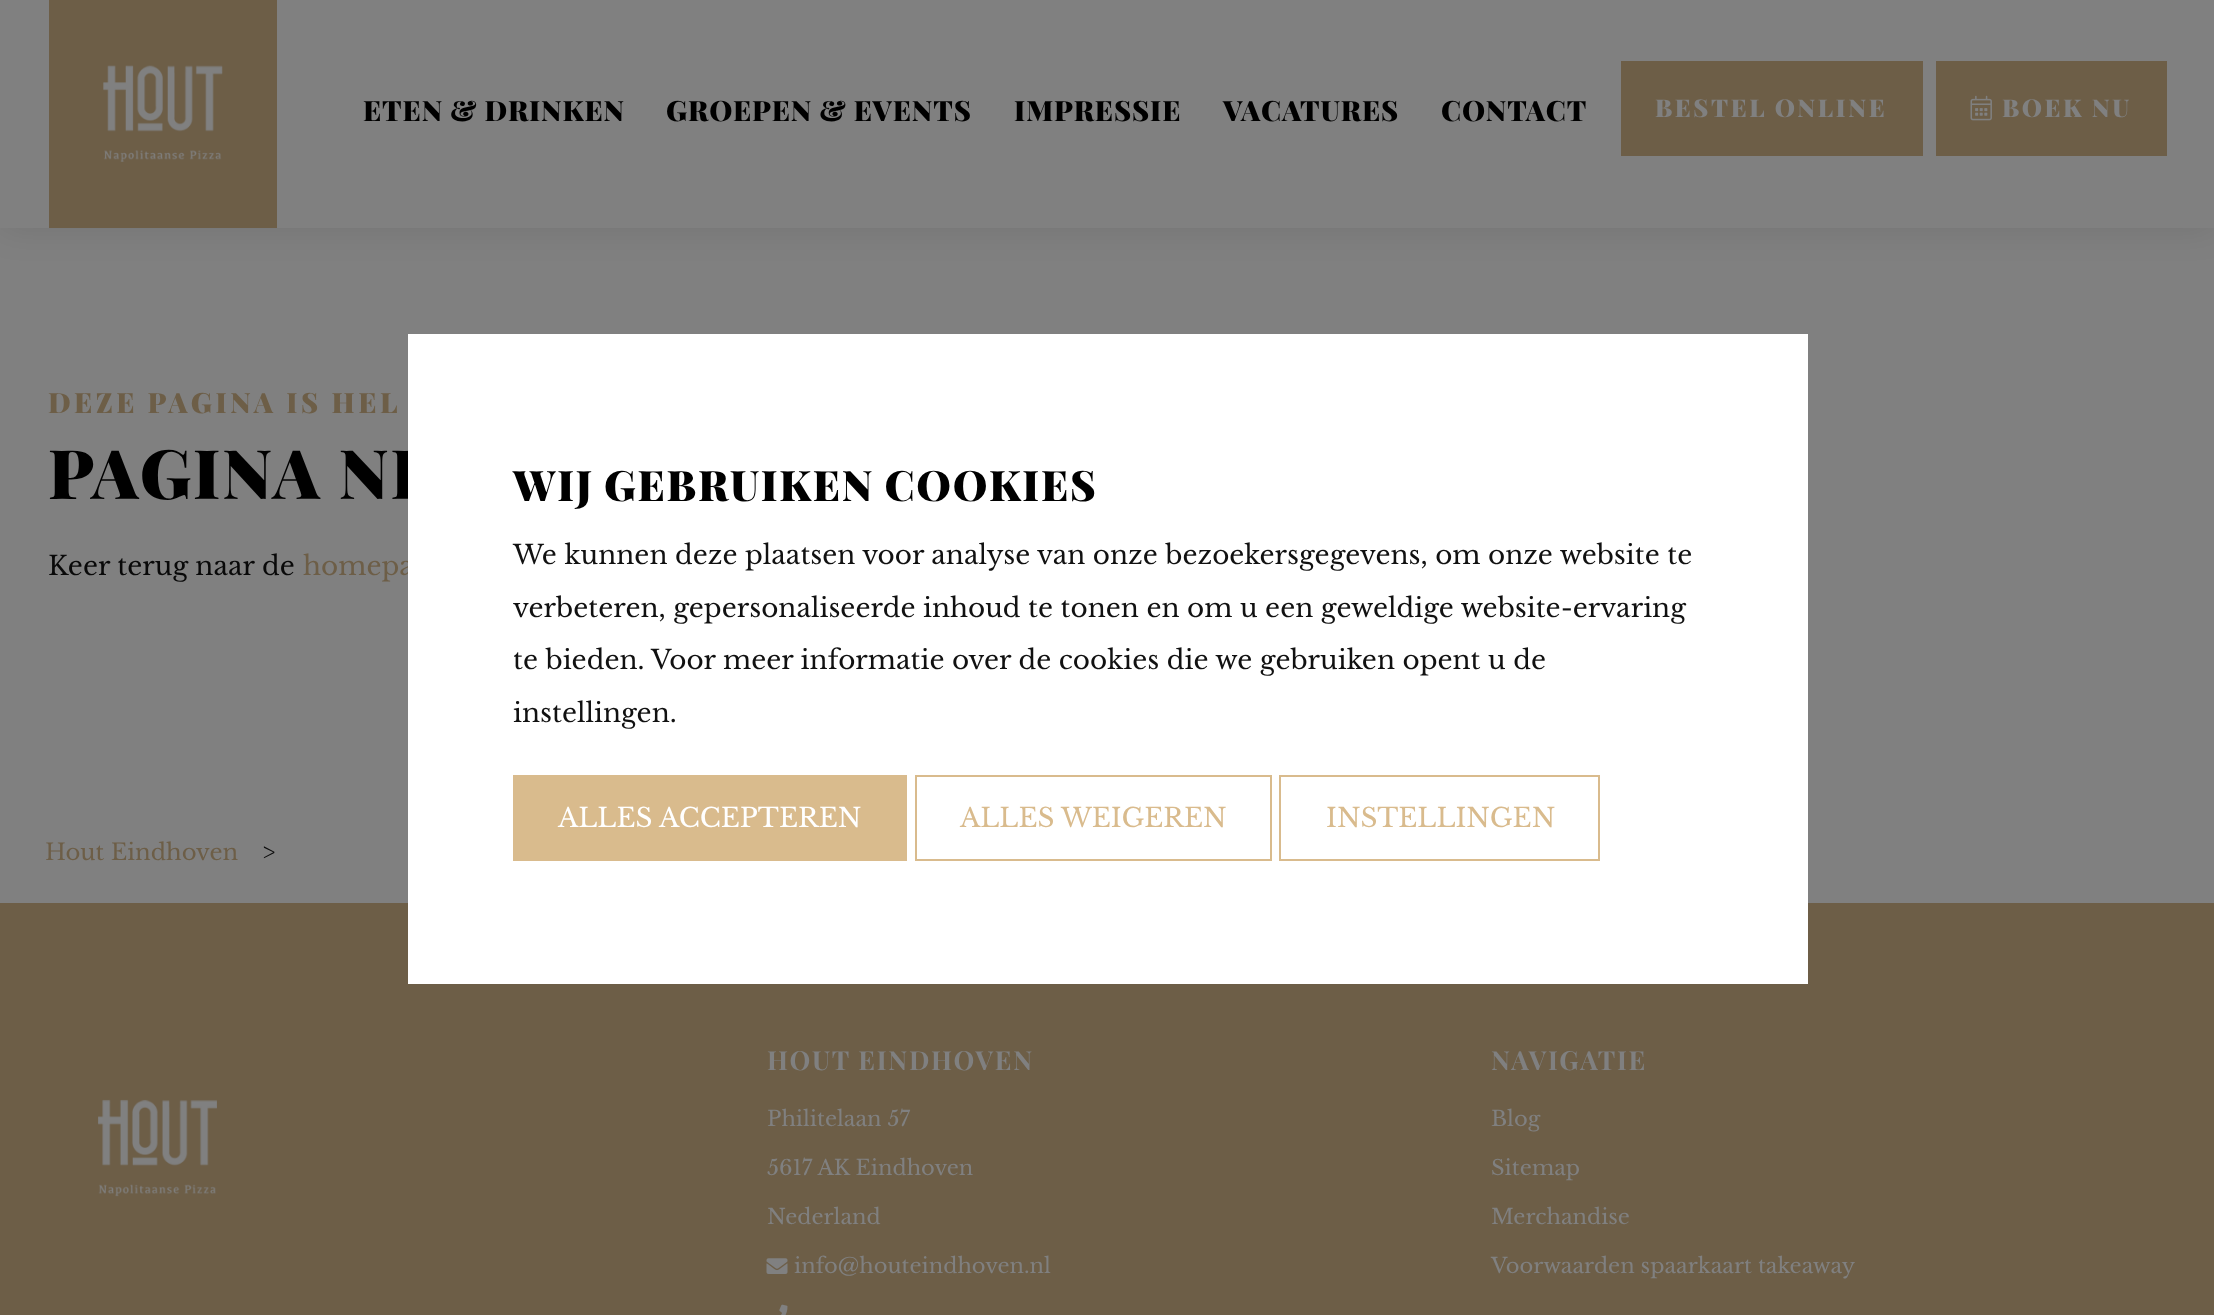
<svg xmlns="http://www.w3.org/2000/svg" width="2214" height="1315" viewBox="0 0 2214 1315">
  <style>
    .t1 { font: 900 28px Playfair Display; letter-spacing: 0.9px; fill: #000; }
    .t2 { font: 900 24.5px Playfair Display; letter-spacing: 2.6px; fill: #808080; }
    .t3 { font: 900 28px Playfair Display; letter-spacing: 3.5px; fill: #6d5e47; }
    .t4 { font: 900 68.25px Playfair Display; letter-spacing: 1.75px; fill: #000; }
    .t5 { font: 26.25px Libre Baskerville; fill: #090909; }
    .t6 { font: 26.25px Libre Baskerville; fill: #6d5e47; }
    .t7 { font: 22.75px Libre Baskerville; fill: #6d5e47; }
    .t8 { font: 22.75px Libre Baskerville; fill: #090909; }
    .t9 { font: bold 26.25px Playfair Display; letter-spacing: 1.75px; fill: #808080; }
    .t10 { font: 21px Libre Baskerville; fill: #808080; }
    .t11 { font: 900 42px Playfair Display; letter-spacing: 1.75px; fill: #000; }
    .t12 { font: 26.25px Libre Baskerville; fill: #111; }
    .t13 { font: 26.25px Libre Baskerville; fill: #fff; }
    .t14 { font: 26.25px Libre Baskerville; fill: #d9bb8d; }
  </style>
  <rect width="100%" height="100%" fill="#6d5e47"/>
  <rect x="0" y="228" width="2214" height="675" fill="#808080"/>
  <rect x="0" y="0" width="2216" height="228" fill="#0000001a" filter="blur(17.5px)"/>
  <rect x="0" y="0" width="2214" height="228" fill="#808080"/>
  <rect x="49" y="0" width="228" height="228" fill="#6d5e47"/>
  <image x="103" y="65" width="120" height="97" href="images/1.png"/>
  <text x="363" y="121" class="t1">ETEN &amp; DRINKEN</text>
  <text x="666" y="121" class="t1">GROEPEN &amp; EVENTS</text>
  <text x="1014" y="121" class="t1">IMPRESSIE</text>
  <text x="1223" y="121" class="t1">VACATURES</text>
  <text x="1441" y="121" class="t1">CONTACT</text>
  <rect x="1621" y="61" width="302" height="95" fill="#6d5e47"/>
  <text x="1655" y="117" class="t2">BESTEL ONLINE</text>
  <rect x="1936" y="61" width="231" height="95" fill="#6d5e47"/>
  <image x="1970" y="95" width="22" height="26" href="images/2.png"/>
  <text x="2002" y="117" class="t2">BOEK NU</text>
  <text x="48" y="413" class="t3">DEZE PAGINA IS HEL</text>
  <text x="48" y="499" class="t4">PAGINA NI</text>
  <text x="48" y="575" class="t5">Keer terug naar de</text>
  <text x="303" y="575" class="t6">homepa</text>
  <text x="45" y="860" class="t7">Hout Eindhoven</text>
  <text x="262" y="860" class="t8">&gt;</text>
  <image x="98" y="1099" width="119" height="98" href="images/3.png"/>
  <text x="767" y="1070" class="t9">HOUT EINDHOVEN</text>
  <text x="767" y="1126" class="t10">Philitelaan 57</text>
  <text x="767" y="1175" class="t10">5617 AK Eindhoven</text>
  <text x="767" y="1224" class="t10">Nederland</text>
  <image x="766" y="1258" width="22" height="16" href="images/4.png"/>
  <text x="794" y="1273" class="t10">info@houteindhoven.nl</text>
  <image x="779" y="1304" width="9" height="11" href="images/5.png"/>
  <text x="1491" y="1070" class="t9">NAVIGATIE</text>
  <text x="1491" y="1126" class="t10">Blog</text>
  <text x="1491" y="1175" class="t10">Sitemap</text>
  <text x="1491" y="1224" class="t10">Merchandise</text>
  <text x="1491" y="1273" class="t10">Voorwaarden spaarkaart takeaway</text>
  <rect x="408" y="334" width="1400" height="650" fill="#fff"/>
  <text x="513" y="501" word-spacing="-1" class="t11">WIJ GEBRUIKEN COOKIES</text>
  <text x="513" y="564" class="t12">We kunnen deze plaatsen voor analyse van onze bezoekersgegevens, om onze website te</text>
  <text x="513" y="617" class="t12">verbeteren, gepersonaliseerde inhoud te tonen en om u een geweldige website-ervaring</text>
  <text x="513" y="669" class="t12">te bieden. Voor meer informatie over de cookies die we gebruiken opent u de</text>
  <text x="513" y="722" class="t12">instellingen.</text>
  <rect x="513" y="775" width="394" height="86" fill="#d9bb8d"/>
  <text x="558" y="827" class="t13">ALLES ACCEPTEREN</text>
  <rect x="916" y="776" width="355" height="84" fill="none" stroke="#d9bb8d" stroke-width="2"/>
  <text x="960" y="827" class="t14">ALLES WEIGEREN</text>
  <rect x="1280" y="776" width="319" height="84" fill="none" stroke="#d9bb8d" stroke-width="2"/>
  <text x="1326" y="827" class="t14">INSTELLINGEN</text>
</svg>
